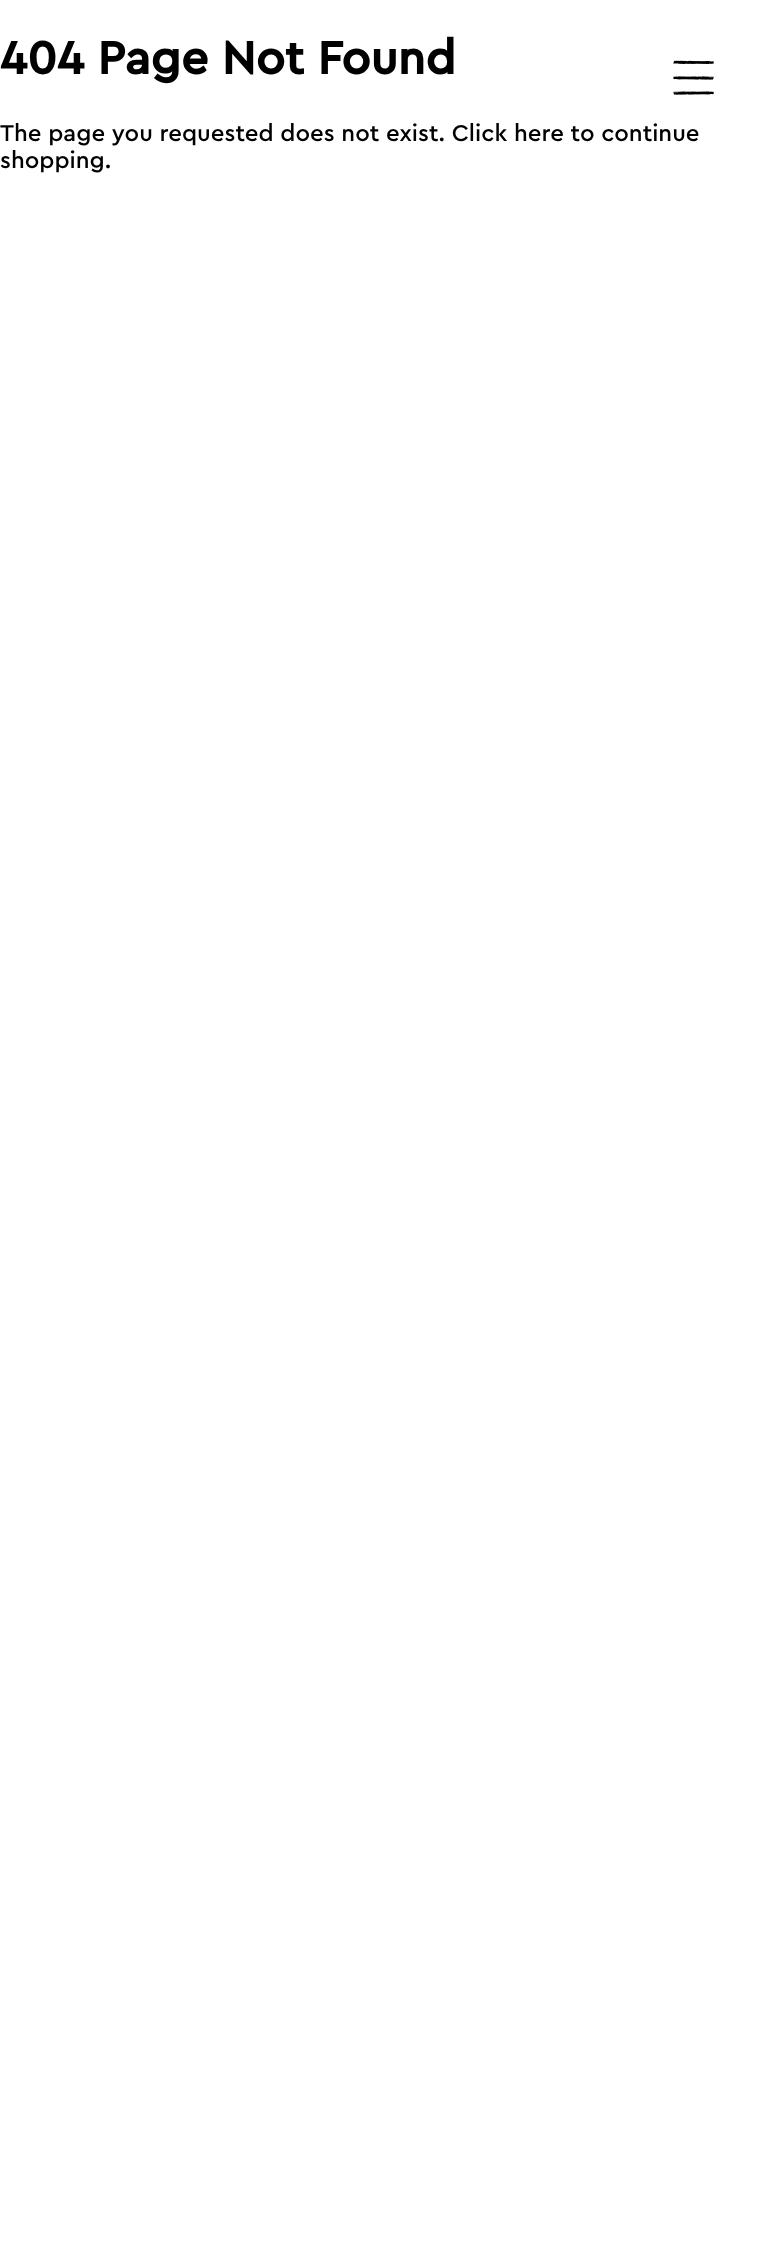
<svg xmlns="http://www.w3.org/2000/svg" width="758" height="2257" viewBox="0 0 758 2257">
  <style>
    .t1 { font: bold 48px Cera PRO; fill: #000; }
    .t2 { font: 500 24px Cera PRO; fill: #000; }
  </style>
  <rect width="100%" height="100%" fill="#fff"/>
  <text x="0" y="74" class="t1">404 Page Not Found</text>
  <text x="0" y="141" class="t2">The page you requested does not exist. Click here to continue</text>
  <text x="0" y="168" class="t2">shopping.</text>
  <image x="673" y="60" width="41" height="35" href="images/1.png"/>
</svg>
